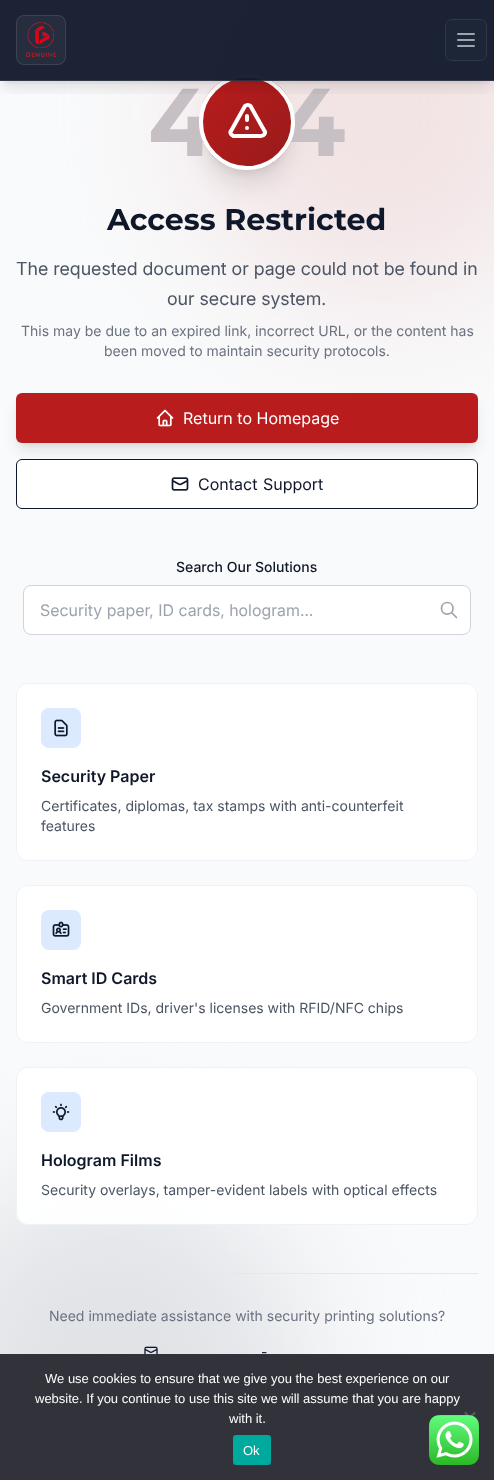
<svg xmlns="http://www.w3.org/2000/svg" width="494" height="1480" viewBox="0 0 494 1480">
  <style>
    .t1 { font: bold 96px Montserrat; fill: #c6c0c5; }
    .t2 { font: bold 30px Montserrat; fill: #0f172a; }
    .t3 { font: 18px Inter; fill: #4b5563; }
    .t4 { font: 14px 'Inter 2'; fill: #6b7280; }
    .t5 { font: 16px 'Inter 2'; fill: #fff; }
    .t6 { font: 16px 'Inter 2'; fill: #0f172a; }
    .t7 { font: 500 14px Inter; fill: #0f172a; }
    .t8 { font: 16px 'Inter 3'; fill: #9ca3af; }
    .t9 { font: 600 16px Inter; fill: #0f172a; }
    .t10 { font: 14px 'Inter 2'; fill: #4b5563; }
    .t11 { font: 14px 'Inter 2'; fill: #0f172a; }
    .t12 { font: 13px Liberation Sans; fill: #fff; }
  </style>
  <defs>
    <clipPath id="clip1"><rect x="199" y="74" width="96" height="96" rx="48"/></clipPath>
    <linearGradient id="g1" gradientUnits="userSpaceOnUse" x1="203" y1="78" x2="291" y2="166"><stop offset="0" stop-color="#b91c1c"/><stop offset="1" stop-color="#991b1b"/></linearGradient>
    <clipPath id="clip2"><rect x="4" y="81" width="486" height="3"/></clipPath>
    <clipPath id="clip3"><rect x="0" y="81" width="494" height="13"/></clipPath>
  </defs>
  <rect width="100%" height="100%" fill="#f9fafb"/>
  <rect x="190" y="-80" width="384" height="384" rx="192" fill="#f2e4e5" filter="blur(64px)"/>
  <rect x="205" y="88" width="84" height="84" rx="42" fill="#0000001a" filter="blur(5px)"/>
  <rect x="204" y="99" width="86" height="86" rx="43" fill="#0000001a" filter="blur(12.5px)"/>
  <text x="148" y="156" class="t1">404</text>
  <g clip-path="url(#clip1)">
    <rect x="203" y="78" width="88" height="88" fill="url(#g1)"/>
  </g>
  <circle cx="247" cy="122" r="46" fill="none" stroke="#fff" stroke-width="4"/>
  <g clip-path="url(#clip2)">
    <rect x="4" y="8" width="486" height="73" fill="#0000001a" filter="blur(3px)"/>
  </g>
  <path d="M247 116V120M247 128H247M233 136H261C264 136 266 132.5 264.5 131L250.5 106C249 104.5 246.5 104.5 245 106L231 131C229.5 132.5 231.5 136 234.5 136Z" fill="none" stroke="#fff" stroke-width="4" stroke-linecap="round" stroke-linejoin="round"/>
  <g clip-path="url(#clip3)">
    <rect x="3" y="13" width="488" height="75" fill="#0000001a" filter="blur(7.5px)"/>
  </g>
  <rect x="0" y="0" width="494" height="81" fill="#0f172af2"/>
  <rect x="0" y="80" width="494" height="1" fill="#ffffff1a"/>
  <rect x="16" y="15" width="50" height="50" rx="8" fill="#262d3f"/>
  <rect x="16.5" y="15.5" width="49" height="49" rx="7.5" fill="none" stroke="#ffffff1a"/>
  <image x="25" y="22" width="31" height="35" href="images/1.png"/>
  <rect x="445.5" y="19.5" width="41" height="41" rx="6.5" fill="none" stroke="#313848"/>
  <rect x="446" y="20" width="40" height="40" rx="6" fill="#1f293780"/>
  <path d="M458 34H474M458 40H474M458 46H474" fill="none" stroke="#9ca3af" stroke-width="2" stroke-linecap="round" stroke-linejoin="round"/>
  <text x="107" y="230" class="t2">Access Restricted</text>
  <text x="16" y="275" class="t3">The requested document or page could not be found in</text>
  <text x="167" y="305" class="t3">our secure system.</text>
  <text x="21" y="336" class="t4">This may be due to an expired link, incorrect URL, or the content has</text>
  <text x="104" y="356" class="t4">been moved to maintain security protocols.</text>
  <rect x="20" y="401" width="454" height="42" rx="2" fill="#0000001a" filter="blur(3px)"/>
  <rect x="19" y="406" width="456" height="44" rx="3" fill="#0000001a" filter="blur(7.5px)"/>
  <rect x="16" y="393" width="462" height="50" rx="6" fill="#b91c1c"/>
  <image x="156" y="409" width="18" height="18" href="images/2.png"/>
  <text x="183" y="424" class="t5">Return to Homepage</text>
  <rect x="16.5" y="459.5" width="461" height="49" rx="5.5" fill="#fff" stroke="#0f172a"/>
  <image x="171" y="477" width="18" height="14" href="images/3.png"/>
  <text x="198" y="490" word-spacing="1" class="t6">Contact Support</text>
  <text x="176" y="572" class="t7">Search Our Solutions</text>
  <rect x="23.5" y="585.5" width="447" height="49" rx="7.5" fill="#fff" stroke="#d1d5db"/>
  <text x="40" y="616" class="t8">Security paper, ID cards, hologram...</text>
  <path d="M456.5 617.5L451.5 612.5M453 608.5C453 616 441.5 616 441.5 608.5C441.5 600.5 453 600.5 453 608.5Z" fill="none" stroke="#9ca3af" stroke-width="1.7" stroke-linecap="round" stroke-linejoin="round"/>
  <rect x="16" y="683" width="462" height="178" rx="12" fill="#fff"/>
  <rect x="16.5" y="683.5" width="461" height="177" rx="11.5" fill="none" stroke="#e2e8f099"/>
  <rect x="41" y="708" width="40" height="40" rx="8" fill="#dbeafe"/>
  <image x="54" y="719" width="14" height="18" href="images/4.png"/>
  <text x="41" y="782" class="t9">Security Paper</text>
  <text x="41" y="811" class="t10">Certificates, diplomas, tax stamps with anti-counterfeit</text>
  <text x="41" y="831" class="t10">features</text>
  <rect x="-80" y="1176" width="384" height="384" rx="192" fill="#e1e3e7" filter="blur(64px)"/>
  <rect x="16" y="885" width="462" height="158" rx="12" fill="#fff"/>
  <rect x="16.5" y="885.5" width="461" height="157" rx="11.5" fill="none" stroke="#e2e8f099"/>
  <rect x="41" y="910" width="40" height="40" rx="8" fill="#dbeafe"/>
  <image x="52" y="921" width="18" height="16" href="images/5.png"/>
  <text x="41" y="984" class="t9">Smart ID Cards</text>
  <text x="41" y="1013" class="t10">Government IDs, driver's licenses with RFID/NFC chips</text>
  <rect x="16" y="1067" width="462" height="158" rx="12" fill="#fffffff2"/>
  <rect x="16.5" y="1067.5" width="461" height="157" rx="11.5" fill="none" stroke="#e2e8f099"/>
  <rect x="41" y="1092" width="40" height="40" rx="8" fill="#dbeafe"/>
  <image x="52" y="1103" width="18" height="18" href="images/6.png"/>
  <text x="41" y="1166" class="t9">Hologram Films</text>
  <text x="41" y="1195" class="t10">Security overlays, tamper-evident labels with optical effects</text>
  <rect x="217" y="1273" width="261" height="1" fill="#e5e7eb"/>
  <text x="49" y="1321" class="t4">Need immediate assistance with security printing solutions?</text>
  <image x="144" y="1346" width="14" height="8" href="images/7.png"/>
  <text x="261" y="1357" class="t11">-</text>
  <rect x="0" y="1354" width="494" height="126" fill="#32323a"/>
  <text x="45" y="1383" class="t12">We use cookies to ensure that we give you the best experience on our</text>
  <text x="35" y="1403" class="t12">website. If you continue to use this site we will assume that you are happy</text>
  <text x="229" y="1423" class="t12">with it.</text>
  <path d="M474.5 1411.5L476 1413L465.5 1423.5L464 1422Z" fill="#59595d"/>
  <path d="M464 1413L465.5 1411.5L476 1422L474.5 1423.5Z" fill="#59595d"/>
  <rect x="233" y="1435" width="38" height="30" rx="3" fill="#00a99d"/>
  <text x="243" y="1455" class="t12">Ok</text>
  <image x="429" y="1415" width="50" height="50" href="images/8.png"/>
</svg>
